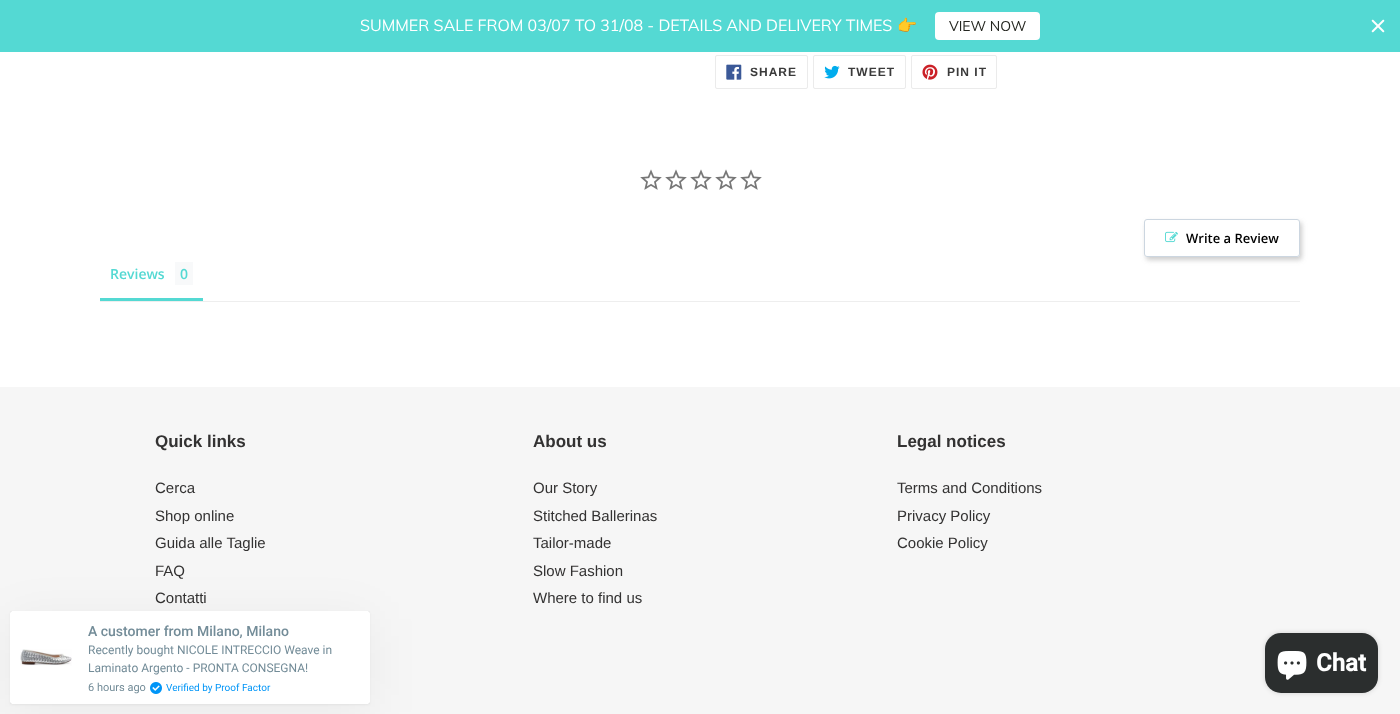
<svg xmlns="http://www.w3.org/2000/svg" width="1400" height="714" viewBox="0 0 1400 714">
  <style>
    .t1 { font: 16px Muli; fill: #fff; }
    .t2 { font: 16px Noto Color Emoji; fill: #fff; }
    .t3 { font: 14px Muli; fill: #242620; }
    .t4 { font: bold 12px Liberation Sans; letter-spacing: 1px; fill: #3a3a3a; }
    .t5 { font: 600 13px Open Sans; fill: #000; }
    .t6 { font: 600 14px Open Sans; fill: #54d9d3; }
    .t7 { font: bold 17px Liberation Sans; fill: #333232; }
    .t8 { font: 15px Liberation Sans; fill: #333232; }
    .t9 { font: 500 14px Roboto; fill: #738c98; }
    .t10 { font: 12px Roboto; fill: #738c98; }
    .t11 { font: 11px Roboto; fill: #738c98; }
    .t12 { font: 10px Roboto; fill: #0095f7; }
    .t13 { font: bold 24px Roboto; fill: #fff; }
  </style>
  <defs>
    <clipPath id="clip1"><path d="M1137 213H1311V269H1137ZM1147 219H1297C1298.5 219 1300 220.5 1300 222V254C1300 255.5 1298.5 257 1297 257H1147C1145.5 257 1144 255.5 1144 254V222C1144 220.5 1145.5 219 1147 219Z" clip-rule="evenodd"/></clipPath>
  </defs>
  <rect width="100%" height="100%" fill="#fff"/>
  <rect x="0" y="0" width="1400" height="52" fill="#54d9d3"/>
  <text x="360" y="31" class="t1">SUMMER SALE FROM 03/07 TO 31/08 - DETAILS AND DELIVERY TIMES</text>
  <text x="897" y="31" class="t2">👉</text>
  <rect x="935" y="12" width="105" height="28" rx="4" fill="#fff"/>
  <text x="949" y="31" class="t3">VIEW NOW</text>
  <image x="1371" y="19" width="14" height="14" href="images/1.png"/>
  <rect x="715.5" y="55.5" width="92" height="33" rx="1.5" fill="none" stroke="#ebebeb"/>
  <image x="726" y="64" width="16" height="16" href="images/2.png"/>
  <text x="750" y="76" class="t4">SHARE</text>
  <rect x="813.5" y="55.5" width="92" height="33" rx="1.5" fill="none" stroke="#ebebeb"/>
  <image x="824" y="65" width="16" height="14" href="images/3.png"/>
  <text x="848" y="76" class="t4">TWEET</text>
  <rect x="911.5" y="55.5" width="85" height="33" rx="1.5" fill="none" stroke="#ebebeb"/>
  <image x="922" y="64" width="16" height="16" href="images/4.png"/>
  <text x="947" y="76" class="t4">PIN IT</text>
  <image x="640" y="169" width="22" height="21" href="images/5.png"/>
  <image x="665" y="169" width="22" height="21" href="images/5.png"/>
  <image x="690" y="169" width="22" height="21" href="images/5.png"/>
  <image x="715" y="169" width="22" height="21" href="images/5.png"/>
  <image x="740" y="169" width="22" height="21" href="images/5.png"/>
  <g clip-path="url(#clip1)">
    <rect x="1146" y="222" width="156" height="38" rx="3" fill="#8888886b" filter="blur(2.5px)"/>
  </g>
  <rect x="1144.5" y="219.5" width="155" height="37" rx="2.5" fill="none" stroke="#ccd6e0"/>
  <image x="1165" y="231" width="13" height="12" href="images/6.png"/>
  <text x="1186" y="243" class="t5">Write a Review</text>
  <rect x="100" y="301" width="1200" height="1" fill="#eee"/>
  <rect x="100" y="298" width="103" height="3" fill="#54d9d3"/>
  <text x="110" y="279" class="t6">Reviews</text>
  <rect x="175" y="262" width="18" height="23" fill="#f8f9fa"/>
  <text x="180" y="279" class="t6">0</text>
  <rect x="0" y="387" width="1400" height="327" fill="#f6f6f6"/>
  <text x="155" y="447" class="t7">Quick links</text>
  <text x="155" y="493" class="t8">Cerca</text>
  <text x="155" y="521" class="t8">Shop online</text>
  <text x="155" y="548" class="t8">Guida alle Taglie</text>
  <text x="155" y="576" class="t8">FAQ</text>
  <text x="155" y="603" class="t8">Contatti</text>
  <text x="533" y="447" class="t7">About us</text>
  <text x="533" y="493" class="t8">Our Story</text>
  <text x="533" y="521" class="t8">Stitched Ballerinas</text>
  <text x="533" y="548" class="t8">Tailor-made</text>
  <text x="533" y="576" class="t8">Slow Fashion</text>
  <text x="533" y="603" class="t8">Where to find us</text>
  <text x="897" y="447" class="t7">Legal notices</text>
  <text x="897" y="493" class="t8">Terms and Conditions</text>
  <text x="897" y="521" class="t8">Privacy Policy</text>
  <text x="897" y="548" class="t8">Cookie Policy</text>
  <rect x="10" y="619" width="360" height="93" rx="2.5" fill="#0000000d" filter="blur(25px)"/>
  <rect x="10" y="612" width="360" height="93" rx="2.5" fill="#0000000d" filter="blur(1px)"/>
  <rect x="10" y="611" width="360" height="93" rx="2.5" fill="#00000033" filter="blur(0.5px)"/>
  <rect x="10" y="611" width="360" height="93" rx="2.5" fill="#fff"/>
  <image x="20" y="649" width="52" height="17" href="images/7.png"/>
  <text x="88" y="636" class="t9">A customer from Milano, Milano</text>
  <text x="88" y="654" class="t10">Recently bought NICOLE INTRECCIO Weave in</text>
  <text x="88" y="672" class="t10">Laminato Argento - PRONTA CONSEGNA!</text>
  <text x="88" y="691" class="t11">6 hours ago</text>
  <image x="150" y="682" width="12" height="12" href="images/8.png"/>
  <text x="166" y="691" class="t12">Verified by Proof Factor</text>
  <rect x="1265" y="633" width="113" height="60" rx="16" fill="#00000026" filter="blur(2.5px)"/>
  <rect x="1265" y="633" width="113" height="60" rx="16" fill="#2b2e2e"/>
  <image x="1277" y="651" width="30" height="29" href="images/9.png"/>
  <text x="1316" y="671" class="t13">Chat</text>
</svg>
